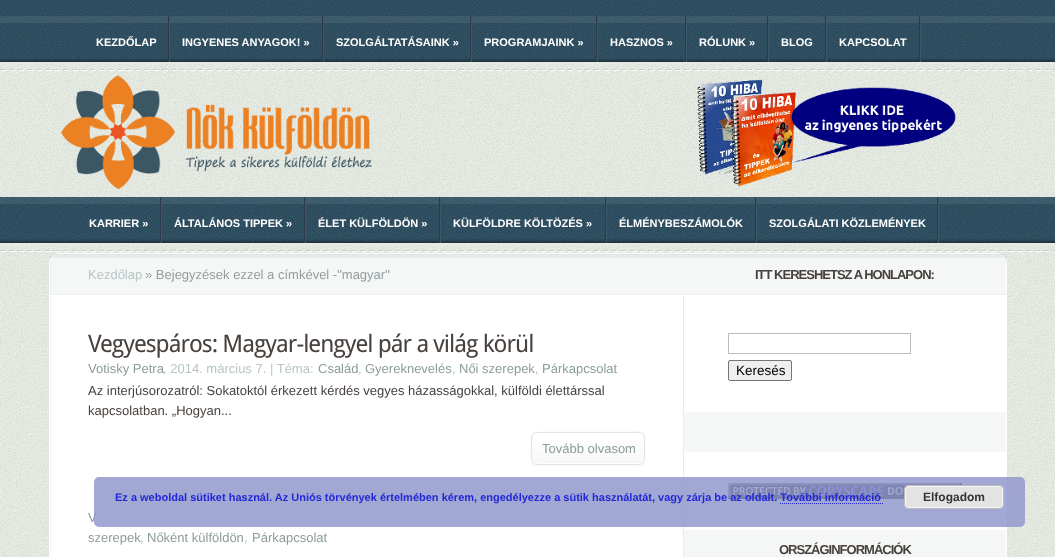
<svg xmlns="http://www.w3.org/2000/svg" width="1055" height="557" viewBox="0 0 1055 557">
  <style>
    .t1 { font: bold 11px Liberation Sans; fill: #fff; }
    .t2 { font: 13px Liberation Sans; fill: #b9c5c5; }
    .t3 { font: 13px Liberation Sans; fill: #929e9e; }
    .t4 { font: 24px Droid Sans; letter-spacing: -1px; fill: #48423f; }
    .t5 { font: 13px Liberation Sans; fill: #8c9c9c; }
    .t6 { font: 13px Liberation Sans; fill: #48423f; }
    .t7 { font: bold 13px Liberation Sans; letter-spacing: -1px; fill: #48423f; }
    .t8 { font: 13.5px Liberation Sans; fill: #000; }
    .t9 { font: bold 11px Liberation Sans; fill: #2228d8; }
    .t10 { font: bold 12px Liberation Sans; fill: #333; }
  </style>
  <rect width="100%" height="100%" fill="#fff"/>
  <image x="0" y="0" width="1055" height="16" href="images/1.png"/>
  <image x="0" y="16" width="1055" height="46" href="images/2.png"/>
  <rect x="0" y="16" width="1055" height="7" fill="#ffffff14"/>
  <image x="0" y="58" width="1055" height="4" href="images/4.png"/>
  <image x="168" y="16" width="2" height="46" href="images/3.png"/>
  <text x="96" y="46" class="t1">KEZDŐLAP</text>
  <image x="322" y="16" width="2" height="46" href="images/3.png"/>
  <text x="182" y="46" class="t1">INGYENES ANYAGOK! »</text>
  <image x="470" y="16" width="2" height="46" href="images/3.png"/>
  <text x="336" y="46" class="t1">SZOLGÁLTATÁSAINK »</text>
  <image x="596" y="16" width="2" height="46" href="images/3.png"/>
  <text x="484" y="46" class="t1">PROGRAMJAINK »</text>
  <image x="685" y="16" width="2" height="46" href="images/3.png"/>
  <text x="610" y="46" class="t1">HASZNOS »</text>
  <image x="767" y="16" width="2" height="46" href="images/3.png"/>
  <text x="699" y="46" class="t1">RÓLUNK »</text>
  <image x="825" y="16" width="2" height="46" href="images/3.png"/>
  <text x="781" y="46" class="t1">BLOG</text>
  <image x="919" y="16" width="2" height="46" href="images/3.png"/>
  <text x="839" y="46" class="t1">KAPCSOLAT</text>
  <rect x="0" y="62" width="1055" height="135" fill="#e6ebe4"/>
  <image x="0" y="64" width="1055" height="133" href="images/5.png"/>
  <image x="0" y="69" width="1055" height="2" href="images/6.png"/>
  <image x="60" y="75" width="531" height="119" href="images/7.png"/>
  <image x="687" y="79" width="269" height="115" href="images/8.png"/>
  <image x="0" y="197" width="1055" height="46" href="images/2.png"/>
  <rect x="0" y="197" width="1055" height="7" fill="#ffffff14"/>
  <image x="0" y="239" width="1055" height="4" href="images/4.png"/>
  <image x="160" y="197" width="2" height="46" href="images/3.png"/>
  <text x="89" y="227" class="t1">KARRIER »</text>
  <image x="304" y="197" width="2" height="46" href="images/3.png"/>
  <text x="174" y="227" class="t1">ÁLTALÁNOS TIPPEK »</text>
  <image x="439" y="197" width="2" height="46" href="images/3.png"/>
  <text x="318" y="227" class="t1">ÉLET KÜLFÖLDÖN »</text>
  <image x="605" y="197" width="2" height="46" href="images/3.png"/>
  <text x="453" y="227" class="t1">KÜLFÖLDRE KÖLTÖZÉS »</text>
  <image x="755" y="197" width="2" height="46" href="images/3.png"/>
  <text x="619" y="227" class="t1">ÉLMÉNYBESZÁMOLÓK</text>
  <image x="937" y="197" width="2" height="46" href="images/3.png"/>
  <text x="769" y="227" class="t1">SZOLGÁLATI KÖZLEMÉNYEK</text>
  <rect x="0" y="243" width="1055" height="314" fill="#e6ebe4"/>
  <image x="0" y="245" width="1055" height="312" href="images/9.png"/>
  <image x="0" y="250" width="1055" height="2" href="images/6.png"/>
  <rect x="48.5" y="252.5" width="959" height="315" rx="9.5" fill="none" stroke="#e2e5e5"/>
  <rect x="49.5" y="253.5" width="957" height="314" rx="9.5" fill="#fff" stroke="#fff"/>
  <image x="50" y="263" width="1" height="294" href="images/10.png"/>
  <rect x="55" y="255" width="946" height="2" fill="#f7f7f7"/>
  <image x="50" y="255" width="634" height="41" href="images/11.png"/>
  <image x="684" y="255" width="322" height="40" href="images/14.png"/>
  <rect x="50" y="256" width="956" height="2" fill="#00000008"/>
  <rect x="50" y="254" width="956" height="1" fill="#dee0e0"/>
  <text x="88" y="279" class="t2">Kezdőlap</text>
  <text x="145" y="279" class="t3">» Bejegyzések ezzel a címkével -"magyar"</text>
  <rect x="683" y="296" width="1" height="261" fill="#e9ecec"/>
  <text x="88" y="352" class="t4">Vegyespáros: Magyar-lengyel pár a világ körül</text>
  <text x="88" y="373" class="t5">Votisky Petra</text>
  <text x="163" y="373" class="t2">, 2014. március 7. | Téma:</text>
  <text x="318" y="373" class="t5">Család</text>
  <text x="358" y="373" class="t2">,</text>
  <text x="365" y="373" class="t5">Gyereknevelés</text>
  <text x="452" y="373" class="t2">,</text>
  <text x="459" y="373" class="t5">Női szerepek</text>
  <text x="535" y="373" class="t2">,</text>
  <text x="542" y="373" class="t5">Párkapcsolat</text>
  <text x="88" y="395" class="t6">Az interjúsorozatról: Sokatoktól érkezett kérdés vegyes házasságokkal, külföldi élettárssal</text>
  <text x="88" y="415" class="t6">kapcsolatban. „Hogyan...</text>
  <image x="635" y="431" width="11" height="35" href="images/12.png"/>
  <image x="530" y="431" width="110" height="35" href="images/13.png"/>
  <text x="542" y="453" class="t5">Tovább olvasom</text>
  <text x="88" y="522" class="t5">V</text>
  <text x="88" y="542" class="t5">szerepek</text>
  <text x="140" y="542" class="t2">,</text>
  <text x="147" y="542" class="t5">Nőként külföldön</text>
  <text x="244" y="542" class="t2">,</text>
  <text x="252" y="542" class="t5">Párkapcsolat</text>
  <text x="755" y="279" class="t7">ITT KERESHETSZ A HONLAPON:</text>
  <rect x="728.5" y="333.5" width="182" height="20" fill="none" stroke="#bbb"/>
  <rect x="728.5" y="360.5" width="63" height="20" rx="1.5" fill="#efefef" stroke="#767676"/>
  <text x="736" y="375" class="t8">Keresés</text>
  <rect x="684" y="412" width="322" height="40" fill="#f5f6f6"/>
  <image x="728" y="483" width="234" height="16" href="images/15.png"/>
  <rect x="684" y="530" width="322" height="27" fill="#f5f6f6"/>
  <text x="779" y="554" class="t7">ORSZÁGINFORMÁCIÓK</text>
  <rect x="94" y="477" width="931" height="50" rx="5" fill="#9299ccd9"/>
  <text x="115" y="501" class="t9">Ez a weboldal sütiket használ. Az Uniós törvények értelmében kérem, engedélyezze a sütik használatát, vagy zárja be az oldalt. További információ</text>
  <rect x="904" y="485" width="100" height="24" rx="5" fill="#e3e3e3"/>
  <rect x="905.5" y="486.5" width="97" height="21" rx="3.5" fill="none" stroke="#f6f6f6"/>
  <rect x="904.5" y="485.5" width="99" height="23" rx="4.5" fill="none" stroke="#bbb"/>
  <text x="923" y="501" class="t10">Elfogadom</text>
  <path d="M780 503.5H884" fill="none" stroke="#2228d8" stroke-dasharray="1 1"/>
</svg>
